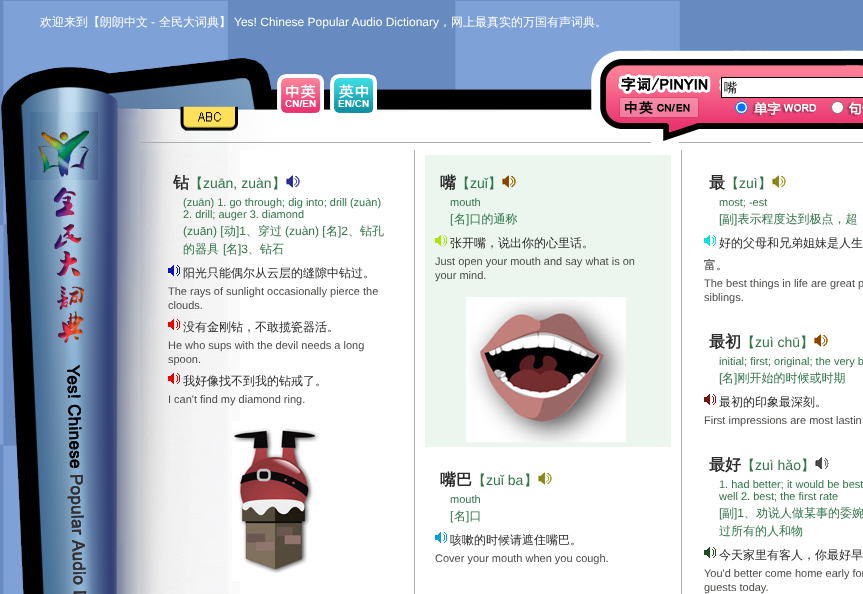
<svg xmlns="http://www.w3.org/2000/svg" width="863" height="594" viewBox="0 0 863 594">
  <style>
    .t1 { font: 500 12px WenQuanYi Zen Hei; fill: #fff; }
    .t2 { font: 12px Liberation Sans; fill: #fff; }
    .t3 { font: 500 13px WenQuanYi Zen Hei; fill: #000; }
    .t4 { font: bold 16px WenQuanYi Zen Hei; fill: #2b2b2b; }
    .t5 { font: 500 14px WenQuanYi Zen Hei; fill: #32764a; }
    .t6 { font: 14px Liberation Sans; fill: #32764a; }
    .t7 { font: 11px Liberation Sans; fill: #32764a; }
    .t8 { font: 12px Liberation Sans; fill: #32764a; }
    .t9 { font: 500 12px WenQuanYi Zen Hei; fill: #32764a; }
    .t10 { font: 500 12px WenQuanYi Zen Hei; fill: #2b2b2b; }
    .t11 { font: 11px Liberation Sans; fill: #4c4b49; }
  </style>
  <rect width="100%" height="100%" fill="#fff"/>
  <image x="0" y="0" width="863" height="594" href="images/1.png"/>
  <text x="40" y="26" class="t1">欢迎来到【朗朗中文</text>
  <text x="151" y="26" class="t2">-</text>
  <text x="159" y="26" class="t1">全民大词典】</text>
  <text x="234" y="26" class="t2">Yes! Chinese Popular Audio Dictionary</text>
  <text x="439" y="26" class="t1">，网上最真实的万国有声词典。</text>
  <image x="1" y="67" width="139" height="527" href="images/2.png"/>
  <image x="30" y="112" width="68" height="68" href="images/3.png"/>
  <image x="140" y="58" width="723" height="92" href="images/4.png"/>
  <image x="277" y="74" width="47" height="39" href="images/5.png"/>
  <image x="330" y="74" width="47" height="39" href="images/6.png"/>
  <image x="591" y="50" width="272" height="93" href="images/7.png"/>
  <rect x="721.5" y="77.5" width="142" height="20" fill="#fff" stroke="#000"/>
  <text x="724" y="92" class="t3">嘴</text>
  <circle cx="741.5" cy="107.5" r="6" fill="#fff" stroke="#0075ff"/>
  <circle cx="741.5" cy="107.5" r="4" fill="#0075ff"/>
  <circle cx="837.5" cy="107.5" r="6" fill="#fff" stroke="#767676"/>
  <image x="180" y="106" width="58" height="25" href="images/8.png"/>
  <rect x="240" y="150" width="623" height="444" fill="#fff"/>
  <image x="140" y="150" width="100" height="444" href="images/9.png"/>
  <rect x="414" y="150" width="1" height="444" fill="#adaeaf"/>
  <text x="173" y="188" class="t4">钻</text>
  <text x="189" y="188" class="t5">【</text>
  <text x="203" y="188" class="t6">zuān, zuàn</text>
  <text x="272" y="188" class="t5">】</text>
  <image x="286" y="175" width="14" height="13" href="images/10.png"/>
  <text x="183" y="206" class="t7">(zuān) 1. go through; dig into; drill (zuàn)</text>
  <text x="183" y="218" class="t7">2. drill; auger 3. diamond</text>
  <text x="183" y="235" class="t8">(zuān) [</text>
  <text x="224" y="235" class="t9">动</text>
  <text x="236" y="235" class="t8">]1</text>
  <text x="246" y="235" class="t9">、穿过</text>
  <text x="285" y="235" class="t8">(zuàn) [</text>
  <text x="326" y="235" class="t9">名</text>
  <text x="338" y="235" class="t8">]2</text>
  <text x="348" y="235" class="t9">、钻孔</text>
  <text x="183" y="253" class="t9">的器具</text>
  <text x="223" y="253" class="t8">[</text>
  <text x="226" y="253" class="t9">名</text>
  <text x="238" y="253" class="t8">]3</text>
  <text x="248" y="253" class="t9">、钻石</text>
  <image x="168" y="265" width="12" height="11" href="images/11.png"/>
  <text x="183" y="277" class="t10">阳光只能偶尔从云层的缝隙中钻过。</text>
  <text x="168" y="295" class="t11">The rays of sunlight occasionally pierce the</text>
  <text x="168" y="309" class="t11">clouds.</text>
  <image x="168" y="319" width="12" height="11" href="images/12.png"/>
  <text x="183" y="331" class="t10">没有金刚钻，不敢揽瓷器活。</text>
  <text x="168" y="349" class="t11">He who sups with the devil needs a long</text>
  <text x="168" y="363" class="t11">spoon.</text>
  <image x="168" y="373" width="12" height="11" href="images/13.png"/>
  <text x="183" y="385" class="t10">我好像找不到我的钻戒了。</text>
  <text x="168" y="403" class="t11">I can't find my diamond ring.</text>
  <image x="232" y="421" width="87" height="160" href="images/14.png"/>
  <rect x="681" y="150" width="1" height="444" fill="#adaeaf"/>
  <rect x="425" y="155" width="246" height="292" fill="#ebf6ee"/>
  <text x="440" y="188" class="t4">嘴</text>
  <text x="456" y="188" class="t5">【</text>
  <text x="470" y="188" class="t6">zuǐ</text>
  <text x="488" y="188" class="t5">】</text>
  <image x="502" y="175" width="14" height="13" href="images/15.png"/>
  <text x="450" y="206" class="t7">mouth</text>
  <text x="450" y="223" class="t8">[</text>
  <text x="454" y="223" class="t9">名 口的通称</text>
  <text x="466" y="223" class="t8">]</text>
  <image x="435" y="235" width="12" height="11" href="images/16.png"/>
  <text x="450" y="247" class="t10">张开嘴，说出你的心里话。</text>
  <text x="435" y="265" class="t11">Just open your mouth and say what is on</text>
  <text x="435" y="279" class="t11">your mind.</text>
  <image x="466" y="297" width="160" height="145" href="images/17.png"/>
  <text x="440" y="485" class="t4">嘴巴</text>
  <text x="472" y="485" class="t5">【</text>
  <text x="486" y="485" class="t6">zuǐ ba</text>
  <text x="524" y="485" class="t5">】</text>
  <image x="538" y="472" width="14" height="13" href="images/18.png"/>
  <text x="450" y="503" class="t7">mouth</text>
  <text x="450" y="520" class="t8">[</text>
  <text x="454" y="520" class="t9">名 口</text>
  <text x="466" y="520" class="t8">]</text>
  <image x="435" y="532" width="12" height="11" href="images/19.png"/>
  <text x="450" y="544" class="t10">咳嗽的时候请遮住嘴巴。</text>
  <text x="435" y="562" class="t11">Cover your mouth when you cough.</text>
  <text x="709" y="188" class="t4">最</text>
  <text x="725" y="188" class="t5">【</text>
  <text x="739" y="188" class="t6">zuì</text>
  <text x="758" y="188" class="t5">】</text>
  <image x="772" y="175" width="14" height="13" href="images/18.png"/>
  <text x="719" y="206" class="t7">most; -est</text>
  <text x="719" y="223" class="t8">[</text>
  <text x="722" y="223" class="t9">副 表示程度达到极点，超</text>
  <text x="734" y="223" class="t8">]</text>
  <image x="704" y="235" width="12" height="11" href="images/20.png"/>
  <text x="719" y="247" class="t10">好的父母和兄弟姐妹是人生</text>
  <text x="704" y="269" class="t10">富。</text>
  <text x="704" y="287" class="t11">The best things in life are great p</text>
  <text x="704" y="301" class="t11">siblings.</text>
  <text x="709" y="347" class="t4">最初</text>
  <text x="741" y="347" class="t5">【</text>
  <text x="755" y="347" class="t6">zuì chū</text>
  <text x="800" y="347" class="t5">】</text>
  <image x="814" y="334" width="14" height="13" href="images/21.png"/>
  <text x="719" y="365" class="t7">initial; first; original; the very b</text>
  <text x="719" y="382" class="t8">[</text>
  <text x="722" y="382" class="t9">名 刚开始的时候或时期</text>
  <text x="734" y="382" class="t8">]</text>
  <image x="704" y="394" width="12" height="11" href="images/22.png"/>
  <text x="719" y="406" class="t10">最初的印象最深刻。</text>
  <text x="704" y="424" class="t11">First impressions are most lastin</text>
  <text x="709" y="470" class="t4">最好</text>
  <text x="741" y="470" class="t5">【</text>
  <text x="755" y="470" class="t6">zuì hǎo</text>
  <text x="801" y="470" class="t5">】</text>
  <image x="815" y="457" width="14" height="12" href="images/23.png"/>
  <text x="719" y="488" class="t7">1. had better; it would be best</text>
  <text x="719" y="500" class="t7">well 2. best; the first rate</text>
  <text x="719" y="517" class="t8">[</text>
  <text x="722" y="517" class="t9">副</text>
  <text x="734" y="517" class="t8">]1</text>
  <text x="744" y="517" class="t9">、劝说人做某事的委婉</text>
  <text x="719" y="535" class="t9">过所有的人和物</text>
  <image x="704" y="547" width="12" height="11" href="images/24.png"/>
  <text x="719" y="559" class="t10">今天家里有客人，你最好早</text>
  <text x="704" y="577" class="t11">You'd better come home early for</text>
  <text x="704" y="591" class="t11">guests today.</text>
</svg>
